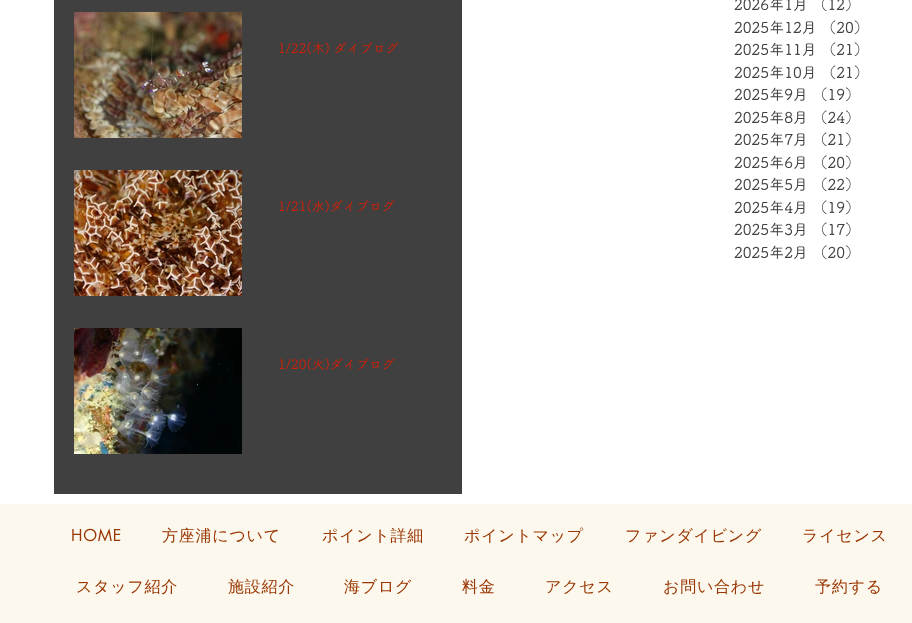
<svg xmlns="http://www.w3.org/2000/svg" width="912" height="623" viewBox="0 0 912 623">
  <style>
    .t1 { font: 500 13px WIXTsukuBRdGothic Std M; fill: #cf210a; }
    .t2 { font: 500 15px WIXTsukuBRdGothic Std M; fill: #404040; }
    .t3 { font: 16px futura; letter-spacing: 0.75px; fill: #993500; }
    .t4 { font: 500 16px WenQuanYi Zen Hei; letter-spacing: 0.75px; fill: #993500; }
  </style>
  <rect width="100%" height="100%" fill="#fff"/>
  <rect x="54" y="0" width="408" height="494" fill="#404040"/>
  <image x="74" y="12" width="168" height="126" href="images/1.png"/>
  <text x="278" y="53" class="t1">1/22(木) ダイブログ</text>
  <image x="74" y="170" width="168" height="126" href="images/2.png"/>
  <text x="278" y="211" class="t1">1/21(水)ダイブログ</text>
  <image x="74" y="328" width="168" height="126" href="images/3.png"/>
  <text x="278" y="369" class="t1">1/20(火)ダイブログ</text>
  <text x="734" y="10" class="t2">2026年1月 （12）</text>
  <text x="734" y="33" class="t2">2025年12月 （20）</text>
  <text x="734" y="55" class="t2">2025年11月 （21）</text>
  <text x="734" y="78" class="t2">2025年10月 （21）</text>
  <text x="734" y="100" class="t2">2025年9月 （19）</text>
  <text x="734" y="123" class="t2">2025年8月 （24）</text>
  <text x="734" y="145" class="t2">2025年7月 （21）</text>
  <text x="734" y="168" class="t2">2025年6月 （20）</text>
  <text x="734" y="190" class="t2">2025年5月 （22）</text>
  <text x="734" y="213" class="t2">2025年4月 （19）</text>
  <text x="734" y="235" class="t2">2025年3月 （17）</text>
  <text x="734" y="258" class="t2">2025年2月 （20）</text>
  <rect x="0" y="504" width="912" height="119" fill="#fcf8ed"/>
  <text x="71" y="541" class="t3">HOME</text>
  <text x="162" y="541" class="t4">方座浦について</text>
  <text x="322" y="541" class="t4">ポイント詳細</text>
  <text x="464" y="541" class="t4">ポイントマップ</text>
  <text x="625" y="541" class="t4">ファンダイビング</text>
  <text x="802" y="541" class="t4">ライセンス</text>
  <text x="76" y="592" class="t4">スタッフ紹介</text>
  <text x="228" y="592" class="t4">施設紹介</text>
  <text x="344" y="592" class="t4">海ブログ</text>
  <text x="462" y="592" class="t4">料金</text>
  <text x="545" y="592" class="t4">アクセス</text>
  <text x="663" y="592" class="t4">お問い合わせ</text>
  <text x="815" y="592" class="t4">予約する</text>
</svg>
